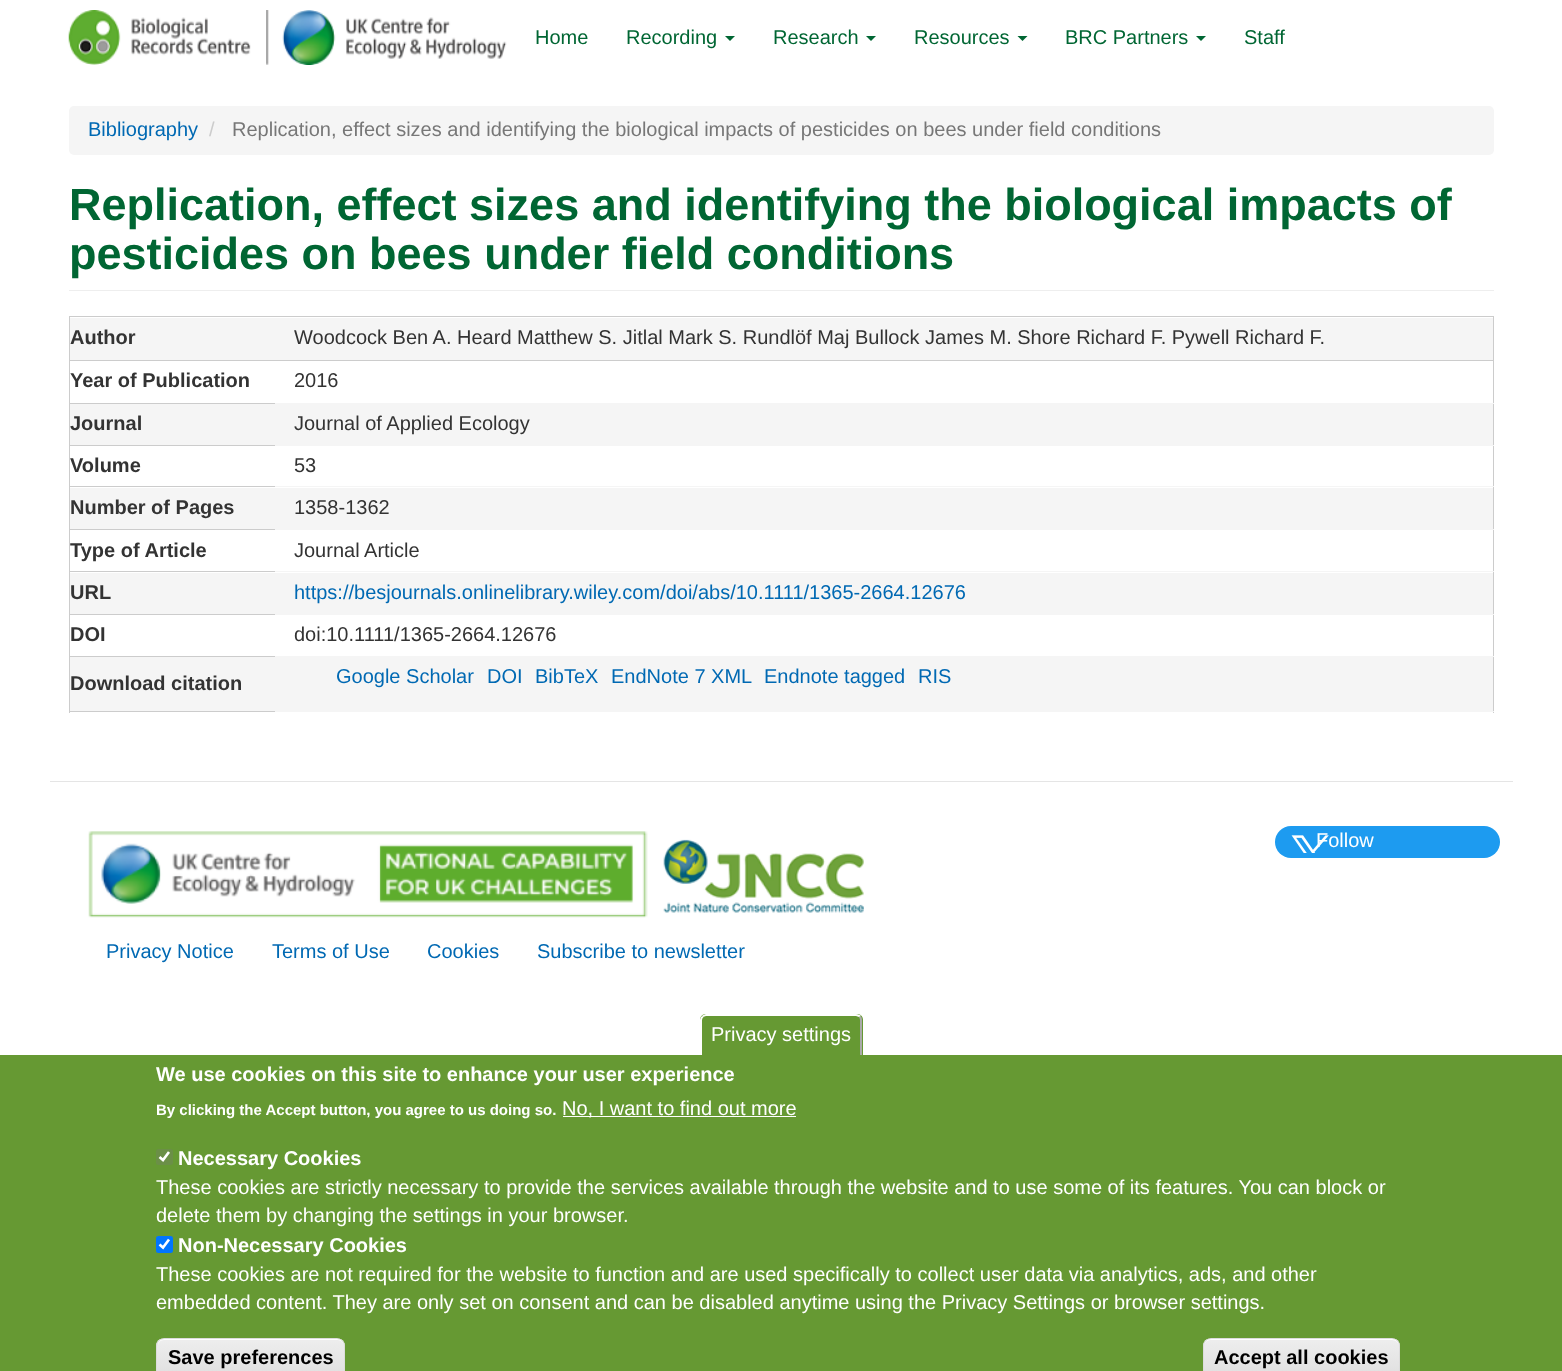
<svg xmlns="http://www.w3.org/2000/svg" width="1562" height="1371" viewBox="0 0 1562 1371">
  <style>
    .t1 { font: 20px Liberation Sans; fill: #063; }
    .t2 { font: 20px Liberation Sans; fill: #0069b3; }
    .t3 { font: 20px Liberation Sans; fill: #ccc; }
    .t4 { font: 20px Liberation Sans; fill: #777; }
    .t5 { font: bold 45px Liberation Sans; fill: #063; }
    .t6 { font: bold 20px Liberation Sans; fill: #333; }
    .t7 { font: 20px Liberation Sans; fill: #333; }
    .t8 { font: 20px Liberation Sans; fill: #fff; }
    .t9 { font: bold 20px Liberation Sans; fill: #fff; }
    .t10 { font: bold 15px Liberation Sans; fill: #fff; }
    .t11 { font: bold 20px Liberation Sans; fill: #000; }
  </style>
  <defs>
    <clipPath id="clip1"><rect x="156" y="1338" width="189" height="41" rx="8"/></clipPath>
    <linearGradient id="g1" gradientUnits="userSpaceOnUse" x1="251" y1="1339" x2="251" y2="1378"><stop offset="0.05" stop-color="#ededed"/><stop offset="1" stop-color="#dfdfdf"/></linearGradient>
    <clipPath id="clip2"><rect x="1203" y="1338" width="197" height="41" rx="8"/></clipPath>
    <linearGradient id="g2" gradientUnits="userSpaceOnUse" x1="1301" y1="1339" x2="1301" y2="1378"><stop offset="0.05" stop-color="#ededed"/><stop offset="1" stop-color="#dfdfdf"/></linearGradient>
  </defs>
  <rect width="100%" height="100%" fill="#fff"/>
  <image x="68" y="10" width="439" height="55" href="images/1.png"/>
  <text x="535" y="44" class="t1">Home</text>
  <text x="626" y="44" class="t1">Recording</text>
  <path d="M725 36H735L730 41Z" fill="#063"/>
  <text x="773" y="44" class="t1">Research</text>
  <path d="M866 36H876L871 41Z" fill="#063"/>
  <text x="914" y="44" class="t1">Resources</text>
  <path d="M1017.5 36H1027.5L1022.5 41Z" fill="#063"/>
  <text x="1065" y="44" class="t1">BRC Partners</text>
  <path d="M1196 36H1206L1201 41Z" fill="#063"/>
  <text x="1244" y="44" class="t1">Staff</text>
  <rect x="69" y="106" width="1425" height="49" rx="5" fill="#f5f5f5"/>
  <text x="88" y="136" class="t2">Bibliography</text>
  <text x="209" y="136" class="t3">/</text>
  <text x="232" y="136" class="t4">Replication, effect sizes and identifying the biological impacts of pesticides on bees under field conditions</text>
  <rect x="69" y="290" width="1425" height="1" fill="#eee"/>
  <text x="69" y="220" class="t5">Replication, effect sizes and identifying the biological impacts of</text>
  <text x="69" y="269" class="t5">pesticides on bees under field conditions</text>
  <rect x="69" y="316" width="1425" height="1" fill="#ccc"/>
  <rect x="1493" y="316" width="1" height="397" fill="#ccc"/>
  <rect x="69" y="711" width="206" height="1" fill="#ccc"/>
  <rect x="69" y="316" width="1" height="397" fill="#ccc"/>
  <rect x="70" y="318" width="1423" height="42" fill="#f5f5f5"/>
  <text x="70" y="344" class="t6">Author</text>
  <text x="294" y="344" class="t7">Woodcock Ben A. Heard Matthew S. Jitlal Mark S. Rundlöf Maj Bullock James M. Shore Richard F. Pywell Richard F.</text>
  <rect x="69" y="360" width="1425" height="1" fill="#ccc"/>
  <text x="70" y="387" class="t6">Year of Publication</text>
  <rect x="275" y="403" width="1219" height="1" fill="#f5f5f5"/>
  <text x="294" y="387" class="t7">2016</text>
  <rect x="70" y="404" width="1423" height="41" fill="#f5f5f5"/>
  <rect x="69" y="403" width="206" height="1" fill="#ccc"/>
  <text x="70" y="430" class="t6">Journal</text>
  <rect x="275" y="445" width="1219" height="1" fill="#f5f5f5"/>
  <text x="294" y="430" class="t7">Journal of Applied Ecology</text>
  <rect x="69" y="445" width="206" height="1" fill="#ccc"/>
  <text x="70" y="472" class="t6">Volume</text>
  <rect x="275" y="486" width="1219" height="1" fill="#f5f5f5"/>
  <text x="294" y="472" class="t7">53</text>
  <rect x="70" y="488" width="1423" height="41" fill="#f5f5f5"/>
  <rect x="69" y="486" width="206" height="1" fill="#ccc"/>
  <text x="70" y="514" class="t6">Number of Pages</text>
  <rect x="275" y="529" width="1219" height="1" fill="#f5f5f5"/>
  <text x="294" y="514" class="t7">1358-1362</text>
  <rect x="69" y="529" width="206" height="1" fill="#ccc"/>
  <text x="70" y="557" class="t6">Type of Article</text>
  <rect x="275" y="571" width="1219" height="1" fill="#f5f5f5"/>
  <text x="294" y="557" class="t7">Journal Article</text>
  <rect x="70" y="573" width="1423" height="41" fill="#f5f5f5"/>
  <rect x="69" y="571" width="206" height="1" fill="#ccc"/>
  <text x="70" y="599" class="t6">URL</text>
  <rect x="275" y="614" width="1219" height="1" fill="#f5f5f5"/>
  <text x="294" y="599" class="t2">https://besjournals.onlinelibrary.wiley.com/doi/abs/10.1111/1365-2664.12676</text>
  <rect x="69" y="614" width="206" height="1" fill="#ccc"/>
  <text x="70" y="641" class="t6">DOI</text>
  <rect x="275" y="656" width="1219" height="1" fill="#f5f5f5"/>
  <text x="294" y="641" class="t7">doi:10.1111/1365-2664.12676</text>
  <rect x="70" y="657" width="1423" height="54" fill="#f5f5f5"/>
  <rect x="69" y="656" width="206" height="1" fill="#ccc"/>
  <text x="70" y="690" class="t6">Download citation</text>
  <rect x="275" y="711" width="1219" height="1" fill="#f5f5f5"/>
  <text x="336" y="683" class="t2">Google Scholar</text>
  <text x="487" y="683" class="t2">DOI</text>
  <text x="535" y="683" class="t2">BibTeX</text>
  <text x="611" y="683" class="t2">EndNote 7 XML</text>
  <text x="764" y="683" class="t2">Endnote tagged</text>
  <text x="918" y="683" class="t2">RIS</text>
  <rect x="50" y="781" width="1463" height="1" fill="#e5e5e5"/>
  <rect x="1275" y="826" width="225" height="32" rx="16" fill="#1d9bf0"/>
  <image x="1291" y="835" width="38" height="18" href="images/2.png"/>
  <text x="1316" y="847" class="t8">Follow</text>
  <image x="88" y="831" width="560" height="87" href="images/3.png"/>
  <image x="663" y="839" width="201" height="74" href="images/4.png"/>
  <text x="106" y="958" class="t2">Privacy Notice</text>
  <text x="272" y="958" class="t2">Terms of Use</text>
  <text x="427" y="958" class="t2">Cookies</text>
  <text x="537" y="958" class="t2">Subscribe to newsletter</text>
  <rect x="0" y="1055" width="1562" height="316" fill="#693"/>
  <path d="M706 1014H857C860.5 1014 863 1016.5 863 1020V1055H700V1020C700 1016.5 702.5 1014 706 1014Z" fill="#693"/>
  <path d="M706 1014H856C858 1014 860 1015 861 1016L859 1017L856 1016H706L703 1017L702 1016C703 1015 705 1014 706 1014Z" fill="#fff"/>
  <path d="M859 1017.5C859.5 1018 860 1019 860 1020V1055H862V1020C862 1018.5 861.5 1017 860.5 1016Z" fill="#aaa"/>
  <path d="M702 1016L703.5 1017C702.5 1018 702 1019 702 1020V1055H700V1020C700 1018.5 701 1017 702 1016Z" fill="#fff"/>
  <text x="711" y="1041" class="t8">Privacy settings</text>
  <text x="156" y="1081" class="t9">We use cookies on this site to enhance your user experience</text>
  <text x="156" y="1115" class="t10">By clicking the Accept button, you agree to us doing so.</text>
  <rect x="563" y="1116" width="233" height="1" fill="#fff"/>
  <text x="562" y="1115" class="t8">No, I want to find out more</text>
  <rect x="156" y="1149" width="17" height="16" rx="2.5" fill="#6b8f47"/>
  <path d="M159.5 1157L163 1160L169 1152" fill="none" stroke="#fff" stroke-width="2.6"/>
  <text x="178" y="1165" class="t9">Necessary Cookies</text>
  <text x="156" y="1194" class="t8">These cookies are strictly necessary to provide the services available through the website and to use some of its features. You can block or</text>
  <text x="156" y="1222" class="t8">delete them by changing the settings in your browser.</text>
  <rect x="156" y="1236" width="17" height="17" rx="2.5" fill="#0075ff"/>
  <path d="M159.5 1244.5L163 1247.5L169 1239.5" fill="none" stroke="#fff" stroke-width="2.6"/>
  <text x="178" y="1252" class="t9">Non-Necessary Cookies</text>
  <text x="156" y="1281" class="t8">These cookies are not required for the website to function and are used specifically to collect user data via analytics, ads, and other</text>
  <text x="156" y="1309" class="t8">embedded content. They are only set on consent and can be disabled anytime using the Privacy Settings or browser settings.</text>
  <g clip-path="url(#clip1)">
    <rect x="156" y="1339" width="189" height="32" fill="url(#g1)"/>
  </g>
  <path d="M164 1340H338C341 1340 344 1343 344 1346V1345C344 1342 341 1339 338 1339H164C161 1339 158 1342 158 1345V1346C158 1343 160 1340 164 1340Z" fill="#fff"/>
  <rect x="156.5" y="1338.5" width="188" height="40" rx="7.5" fill="none" stroke="#dcdcdc"/>
  <text x="168" y="1364" class="t11">Save preferences</text>
  <g clip-path="url(#clip2)">
    <rect x="1203" y="1339" width="197" height="32" fill="url(#g2)"/>
  </g>
  <path d="M1210 1340H1392C1396 1340 1399 1343 1399 1346V1345C1399 1342 1396 1339 1393 1339H1210C1207 1339 1204 1342 1204 1345V1346C1204 1343 1207 1340 1210 1340Z" fill="#fff"/>
  <rect x="1203.5" y="1338.5" width="196" height="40" rx="7.5" fill="none" stroke="#dcdcdc"/>
  <text x="1214" y="1364" class="t11">Accept all cookies</text>
</svg>
